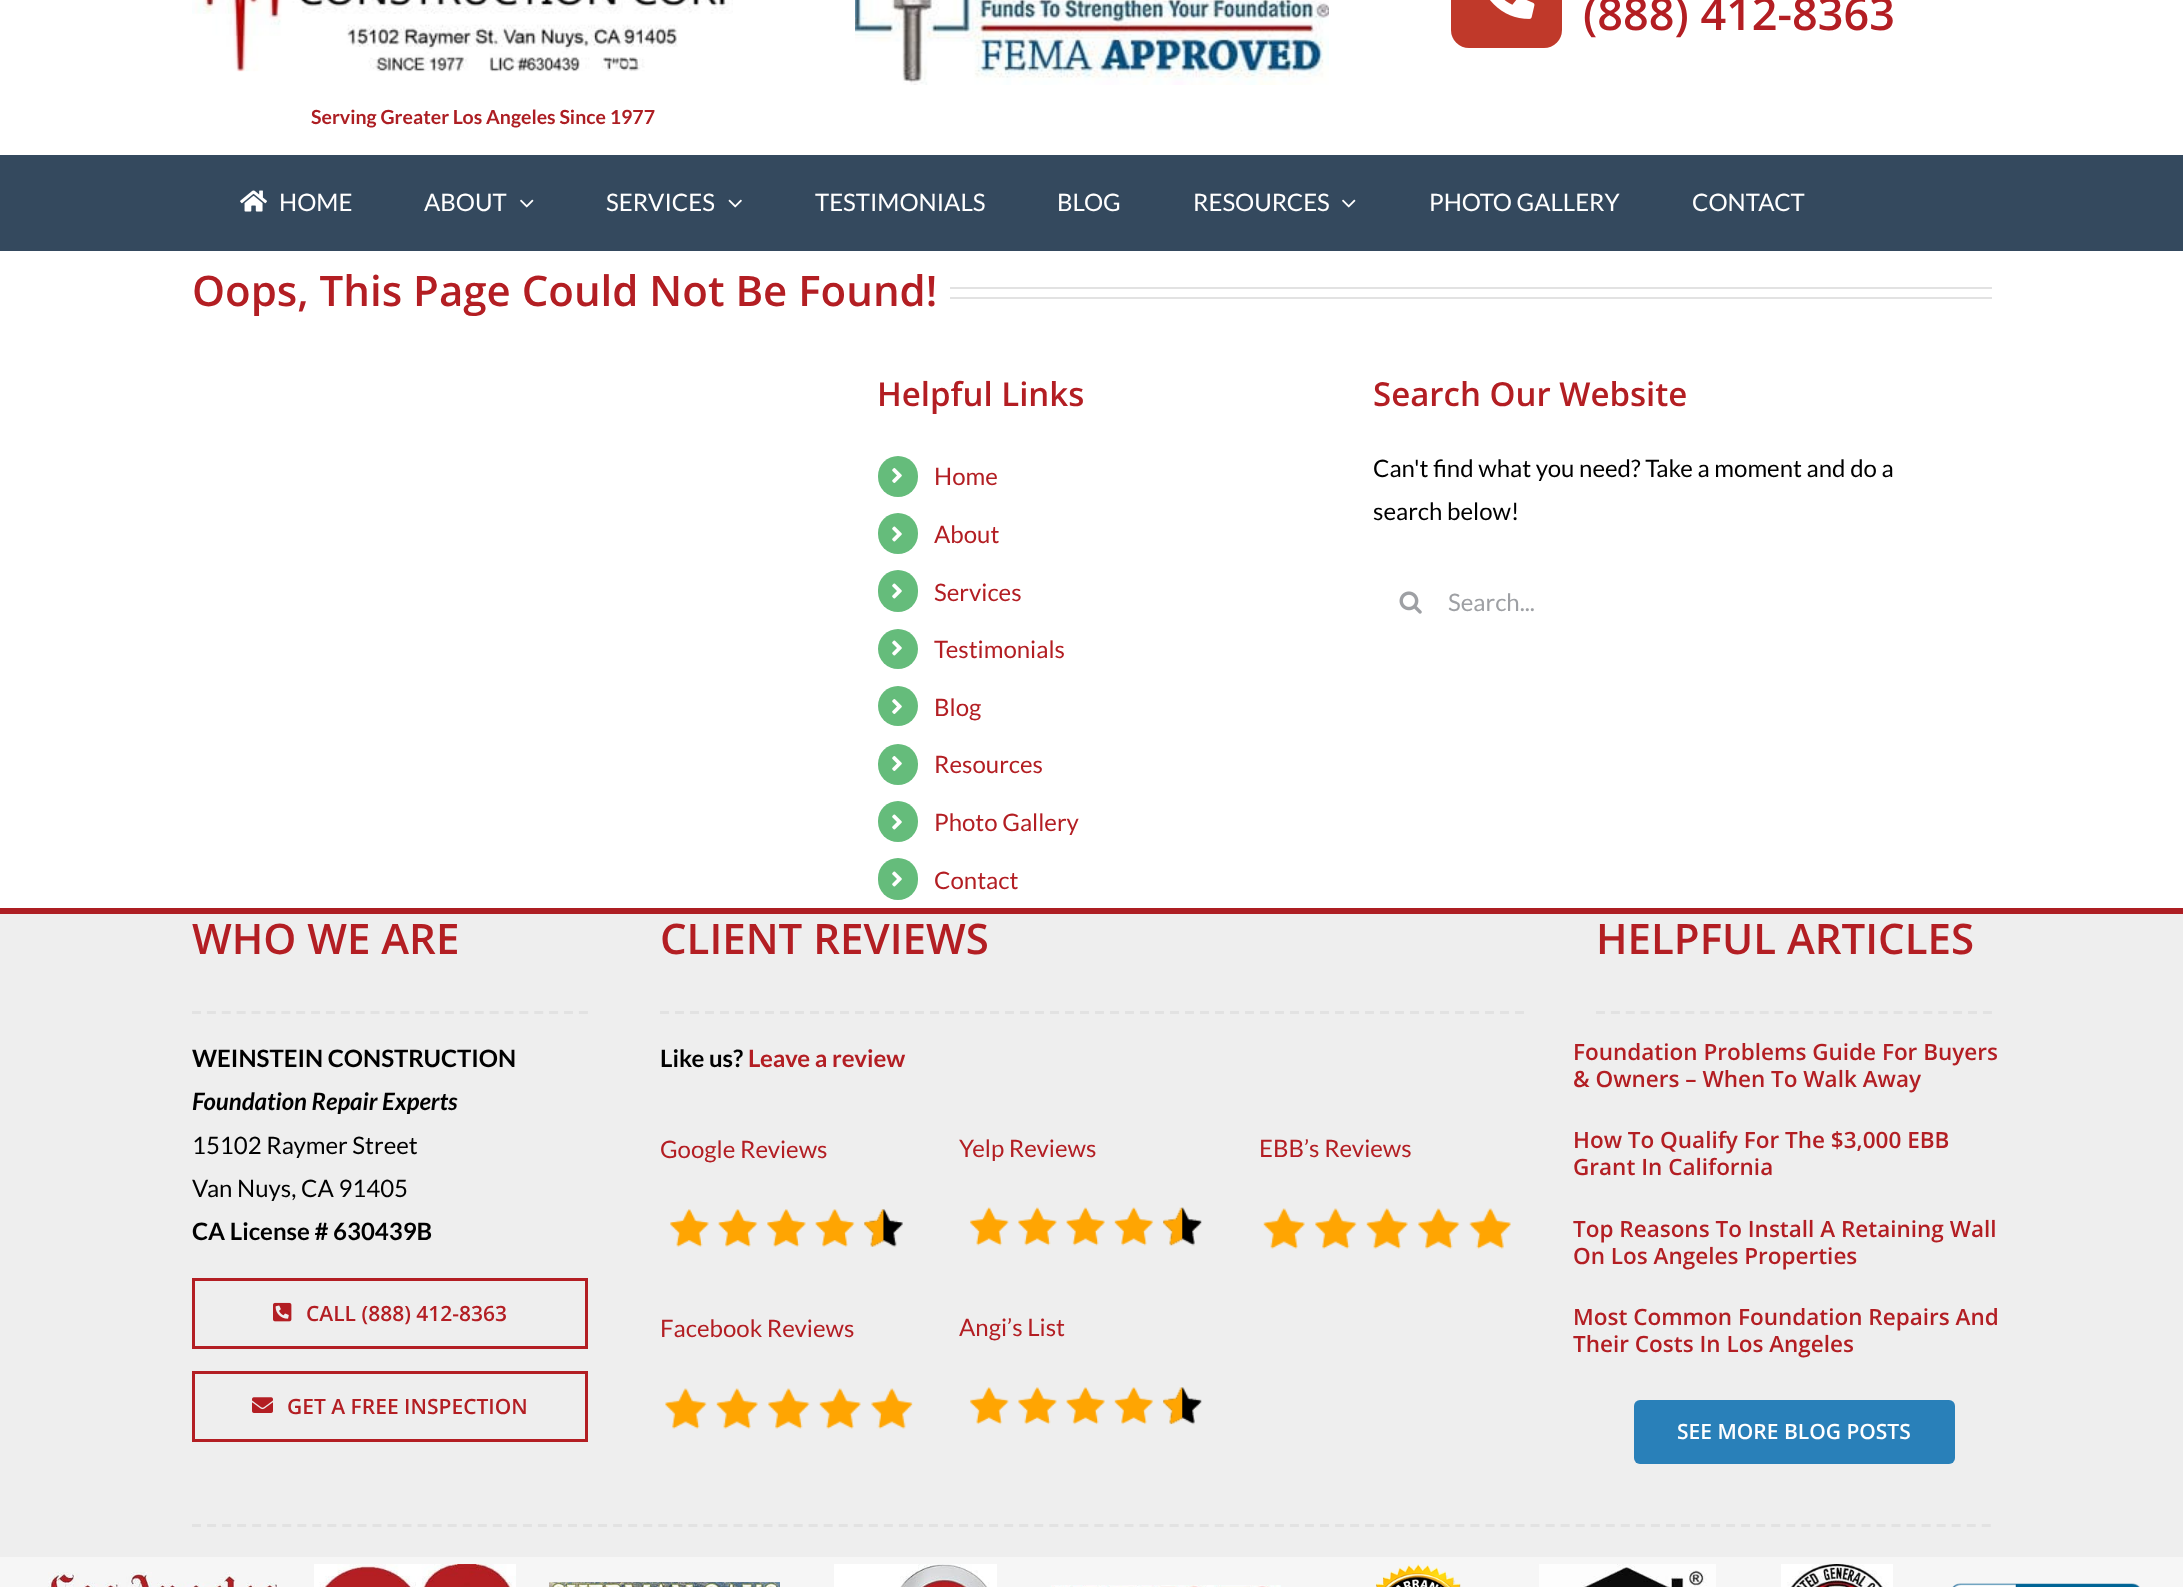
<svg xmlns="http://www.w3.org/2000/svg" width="2183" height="1587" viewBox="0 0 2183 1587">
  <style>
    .t1 { font: 600 45px Open Sans; fill: #b31e23; }
    .t2 { font: bold 19.5px Lato; fill: #ad1e23; }
    .t3 { font: 24px Lato; fill: #fff; }
    .t4 { font: 600 42px Open Sans; fill: #b31e23; }
    .t5 { font: 600 33px Open Sans; fill: #b31e23; }
    .t6 { font: 24px Lato; fill: #b31e23; }
    .t7 { font: 24px Lato; fill: #000; }
    .t8 { font: 24px Lato; fill: #9ea0a4; }
    .t9 { font: bold 24px Lato; fill: #000; }
    .t10 { font: italic bold 24px Lato; fill: #000; }
    .t11 { font: 600 21px Open Sans; fill: #b31e23; }
    .t12 { font: bold 24px Lato; fill: #b31e23; }
    .t13 { font: 600 22.5px Open Sans; fill: #b31e23; }
    .t14 { font: 600 21px Open Sans; fill: #fff; }
  </style>
  <rect width="100%" height="100%" fill="#fff"/>
  <image x="855" y="0" width="474" height="85" href="images/1.png"/>
  <rect x="1451" y="-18" width="111" height="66" rx="18" fill="#c0392a"/>
  <image x="1490" y="0" width="45" height="19" href="images/2.png"/>
  <text x="1583" y="30" class="t1">(888) 412-8363</text>
  <image x="192" y="0" width="541" height="72" href="images/3.png"/>
  <text x="311" y="124" class="t2">Serving Greater Los Angeles Since 1977</text>
  <rect x="0" y="155" width="2183" height="96" fill="#34495e"/>
  <image x="240" y="190" width="27" height="22" href="images/4.png"/>
  <text x="279" y="211" class="t3">HOME</text>
  <text x="424" y="211" class="t3">ABOUT</text>
  <image x="520" y="199" width="14" height="9" href="images/5.png"/>
  <text x="606" y="211" class="t3">SERVICES</text>
  <image x="728" y="199" width="14" height="9" href="images/6.png"/>
  <text x="815" y="211" class="t3">TESTIMONIALS</text>
  <text x="1057" y="211" class="t3">BLOG</text>
  <text x="1193" y="211" class="t3">RESOURCES</text>
  <image x="1342" y="199" width="14" height="9" href="images/5.png"/>
  <text x="1429" y="211" class="t3">PHOTO GALLERY</text>
  <text x="1692" y="211" class="t3">CONTACT</text>
  <text x="192" y="306" class="t4">Oops, This Page Could Not Be Found!</text>
  <rect x="950" y="287" width="1042" height="2" fill="#e2e2e2"/>
  <rect x="950" y="297" width="1042" height="2" fill="#e2e2e2"/>
  <text x="877" y="406" class="t5">Helpful Links</text>
  <rect x="878" y="456" width="40" height="41" rx="20" fill="#65bc7b"/>
  <image x="892" y="468" width="10" height="15" href="images/7.png"/>
  <text x="934" y="485" class="t6">Home</text>
  <rect x="878" y="513" width="40" height="41" rx="20" fill="#65bc7b"/>
  <image x="892" y="526" width="10" height="16" href="images/8.png"/>
  <text x="934" y="543" class="t6">About</text>
  <rect x="878" y="570" width="40" height="42" rx="20" fill="#65bc7b"/>
  <image x="892" y="583" width="10" height="16" href="images/8.png"/>
  <text x="934" y="601" class="t6">Services</text>
  <circle cx="898" cy="649" r="20" fill="#65bc7b"/>
  <image x="892" y="640" width="10" height="16" href="images/8.png"/>
  <text x="934" y="658" class="t6">Testimonials</text>
  <circle cx="898" cy="706" r="20" fill="#65bc7b"/>
  <image x="892" y="699" width="10" height="15" href="images/7.png"/>
  <text x="934" y="716" class="t6">Blog</text>
  <rect x="878" y="744" width="40" height="41" rx="20" fill="#65bc7b"/>
  <image x="892" y="756" width="10" height="15" href="images/7.png"/>
  <text x="934" y="773" class="t6">Resources</text>
  <rect x="878" y="801" width="40" height="41" rx="20" fill="#65bc7b"/>
  <image x="892" y="814" width="10" height="16" href="images/8.png"/>
  <text x="934" y="831" class="t6">Photo Gallery</text>
  <rect x="878" y="858" width="40" height="42" rx="20" fill="#65bc7b"/>
  <image x="892" y="871" width="10" height="16" href="images/8.png"/>
  <text x="934" y="889" class="t6">Contact</text>
  <text x="1373" y="406" class="t5">Search Our Website</text>
  <text x="1373" y="477" class="t7">Can't find what you need? Take a moment and do a</text>
  <text x="1373" y="520" class="t7">search below!</text>
  <image x="1399" y="591" width="23" height="23" href="images/9.png"/>
  <text x="1448" y="611" class="t8">Search...</text>
  <rect x="0" y="914" width="2183" height="643" fill="#eee"/>
  <rect x="0" y="908" width="2183" height="6" fill="#ad1e23"/>
  <text x="192" y="954" class="t4">WHO WE ARE</text>
  <path d="M192 1012.5H588" fill="none" stroke="#e2e2e2" stroke-width="3" stroke-dasharray="9 5.88"/>
  <text x="192" y="1067" class="t9">WEINSTEIN CONSTRUCTION</text>
  <text x="192" y="1110" class="t10">Foundation Repair Experts</text>
  <text x="192" y="1154" class="t7">15102 Raymer Street</text>
  <text x="192" y="1197" class="t7">Van Nuys, CA 91405</text>
  <text x="192" y="1240" class="t9">CA License # 630439B</text>
  <rect x="193.5" y="1279.5" width="393" height="68" fill="none" stroke="#b31e23" stroke-width="3"/>
  <image x="273" y="1302" width="19" height="20" href="images/10.png"/>
  <text x="306" y="1321" class="t11">CALL (888) 412-8363</text>
  <rect x="193.5" y="1372.5" width="393" height="68" fill="none" stroke="#b31e23" stroke-width="3"/>
  <image x="252" y="1397" width="21" height="16" href="images/11.png"/>
  <text x="287" y="1414" class="t11">GET A FREE INSPECTION</text>
  <text x="660" y="954" class="t4">CLIENT REVIEWS</text>
  <path d="M660 1012.5H1524" fill="none" stroke="#e2e2e2" stroke-width="3" stroke-dasharray="9 6"/>
  <text x="660" y="1067" class="t9">Like us?</text>
  <text x="748" y="1067" class="t12">Leave a review</text>
  <text x="660" y="1158" class="t6">Google Reviews</text>
  <image x="670" y="1209" width="233" height="39" href="images/12.png"/>
  <text x="660" y="1337" class="t6">Facebook Reviews</text>
  <image x="665" y="1388" width="248" height="41" href="images/13.png"/>
  <text x="959" y="1157" class="t6">Yelp Reviews</text>
  <image x="970" y="1207" width="232" height="40" href="images/14.png"/>
  <text x="959" y="1336" class="t6">Angi’s List</text>
  <image x="970" y="1387" width="232" height="38" href="images/15.png"/>
  <text x="1259" y="1157" class="t6">EBB’s Reviews</text>
  <image x="1263" y="1208" width="248" height="41" href="images/16.png"/>
  <text x="1596" y="954" class="t4">HELPFUL ARTICLES</text>
  <path d="M1596 1012.5H1992" fill="none" stroke="#e2e2e2" stroke-width="3" stroke-dasharray="9 5.88"/>
  <text x="1573" y="1060" class="t13">Foundation Problems Guide For Buyers</text>
  <text x="1573" y="1087" class="t13">&amp; Owners – When To Walk Away</text>
  <text x="1573" y="1148" class="t13">How To Qualify For The $3,000 EBB</text>
  <text x="1573" y="1175" class="t13">Grant In California</text>
  <text x="1573" y="1237" class="t13">Top Reasons To Install A Retaining Wall</text>
  <text x="1573" y="1264" class="t13">On Los Angeles Properties</text>
  <text x="1573" y="1325" class="t13">Most Common Foundation Repairs And</text>
  <text x="1573" y="1352" class="t13">Their Costs In Los Angeles</text>
  <rect x="1634" y="1400" width="321" height="64" rx="6" fill="#2980b9"/>
  <text x="1677" y="1439" class="t14">SEE MORE BLOG POSTS</text>
  <path d="M192 1525.5H1992" fill="none" stroke="#e2e2e2" stroke-width="3" stroke-dasharray="9 6.04"/>
  <rect x="0" y="1557" width="2183" height="30" fill="#f6f6f6"/>
  <image x="48" y="1572" width="230" height="15" href="images/17.png"/>
  <image x="314" y="1564" width="202" height="23" href="images/18.png"/>
  <image x="549" y="1582" width="231" height="5" href="images/19.png"/>
  <image x="834" y="1564" width="163" height="23" href="images/20.png"/>
  <image x="1050" y="1585" width="231" height="2" href="images/21.png"/>
  <image x="1376" y="1564" width="85" height="23" href="images/22.png"/>
  <image x="1539" y="1564" width="177" height="23" href="images/23.png"/>
  <image x="1781" y="1564" width="112" height="23" href="images/24.png"/>
  <image x="1952" y="1583" width="188" height="4" href="images/25.png"/>
</svg>
